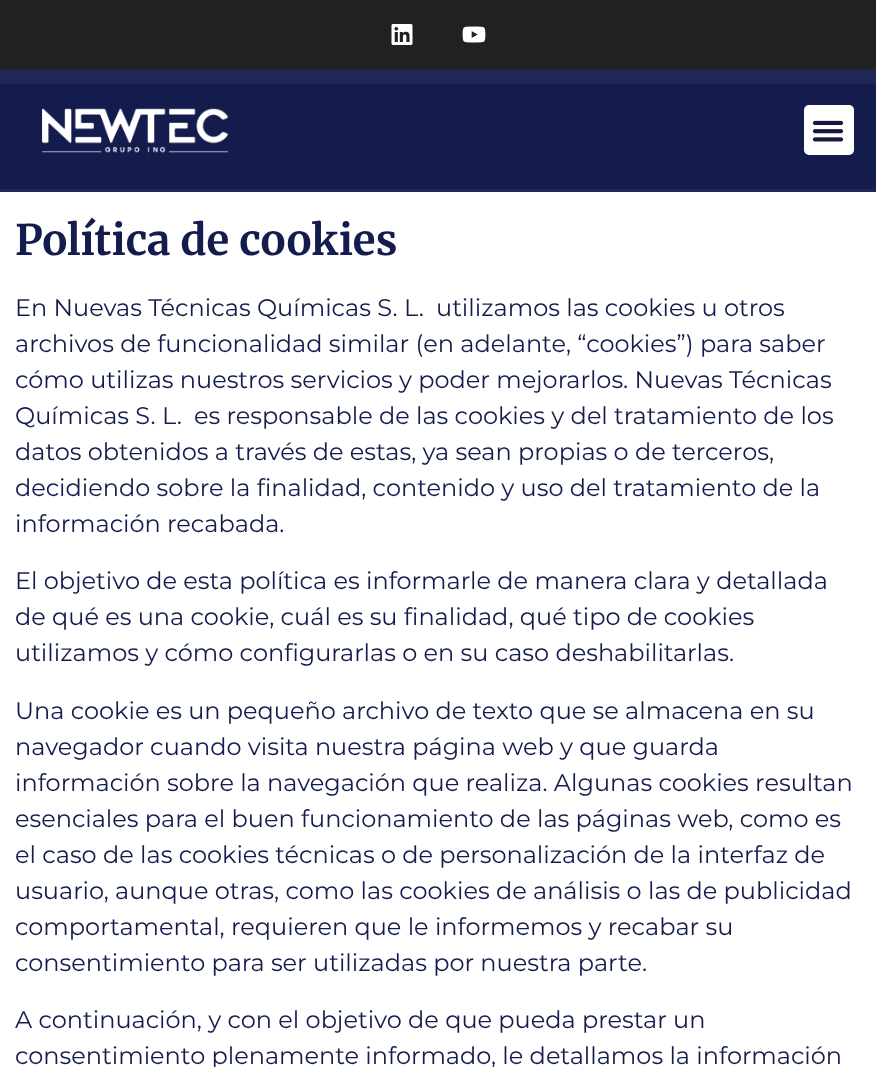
<svg xmlns="http://www.w3.org/2000/svg" width="876" height="1067" viewBox="0 0 876 1067">
  <style>
    .t1 { font: bold 42px Merriweather; fill: #141c4e; }
    .t2 { font: 24px Montserrat; fill: #141c4e; }
  </style>
  <rect width="100%" height="100%" fill="#fff"/>
  <rect x="0" y="69" width="876" height="123" fill="#202757"/>
  <rect x="0" y="0" width="876" height="69" fill="#212121"/>
  <image x="391" y="24" width="22" height="21" href="images/1.png"/>
  <image x="462" y="26" width="24" height="17" href="images/2.png"/>
  <rect x="0" y="84" width="876" height="105" fill="#141c4e"/>
  <image x="42" y="108" width="187" height="45" href="images/3.png"/>
  <rect x="804" y="105" width="50" height="50" rx="5" fill="#fff"/>
  <image x="812" y="120" width="32" height="22" href="images/4.png"/>
  <text x="15" y="255" class="t1">Política de cookies</text>
  <text x="15" y="316" class="t2">En Nuevas Técnicas Químicas S. L.</text>
  <text x="436" y="316" class="t2">utilizamos las cookies u otros</text>
  <text x="15" y="352" class="t2">archivos de funcionalidad similar (en adelante, “cookies”) para saber</text>
  <text x="15" y="388" class="t2">cómo utilizas nuestros servicios y poder mejorarlos. Nuevas Técnicas</text>
  <text x="15" y="424" class="t2">Químicas S. L.</text>
  <text x="194" y="424" class="t2">es responsable de las cookies y del tratamiento de los</text>
  <text x="15" y="460" class="t2">datos obtenidos a través de estas, ya sean propias o de terceros,</text>
  <text x="15" y="496" class="t2">decidiendo sobre la finalidad, contenido y uso del tratamiento de la</text>
  <text x="15" y="532" class="t2">información recabada.</text>
  <text x="15" y="589" class="t2">El objetivo de esta política es informarle de manera clara y detallada</text>
  <text x="15" y="625" class="t2">de qué es una cookie, cuál es su finalidad, qué tipo de cookies</text>
  <text x="15" y="661" class="t2">utilizamos y cómo configurarlas o en su caso deshabilitarlas.</text>
  <text x="15" y="719" class="t2">Una cookie es un pequeño archivo de texto que se almacena en su</text>
  <text x="15" y="755" class="t2">navegador cuando visita nuestra página web y que guarda</text>
  <text x="15" y="791" class="t2">información sobre la navegación que realiza. Algunas cookies resultan</text>
  <text x="15" y="827" class="t2">esenciales para el buen funcionamiento de las páginas web, como es</text>
  <text x="15" y="863" class="t2">el caso de las cookies técnicas o de personalización de la interfaz de</text>
  <text x="15" y="899" class="t2">usuario, aunque otras, como las cookies de análisis o las de publicidad</text>
  <text x="15" y="935" class="t2">comportamental, requieren que le informemos y recabar su</text>
  <text x="15" y="971" class="t2">consentimiento para ser utilizadas por nuestra parte.</text>
  <text x="15" y="1028" class="t2">A continuación, y con el objetivo de que pueda prestar un</text>
  <text x="15" y="1064" class="t2">consentimiento plenamente informado, le detallamos la información</text>
</svg>
